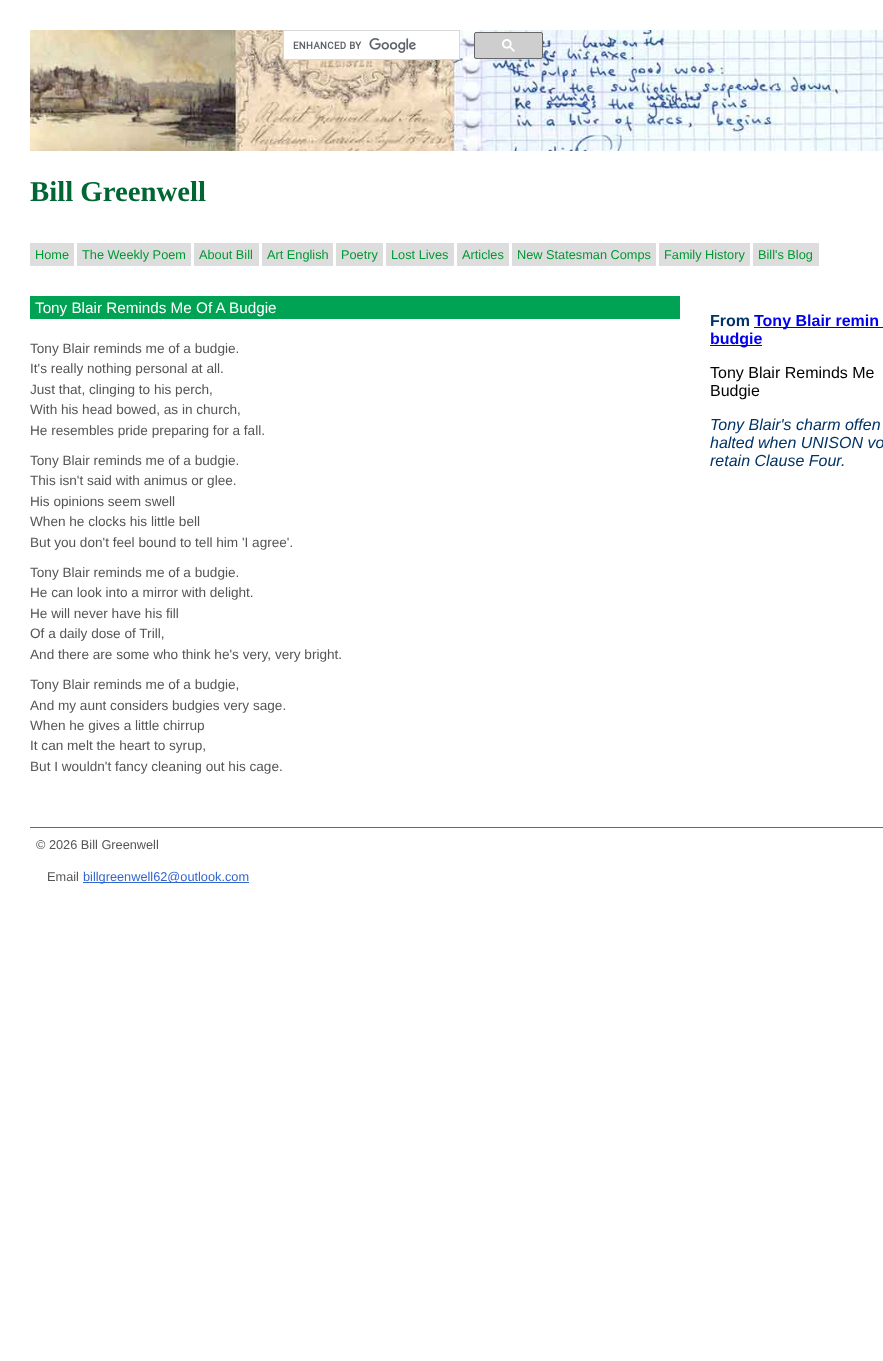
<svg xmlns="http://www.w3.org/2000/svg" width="883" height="1361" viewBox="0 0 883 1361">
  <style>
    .t1 { font: bold 28.75px Liberation Serif; fill: #063; }
    .t2 { font: 12.75px Liberation Sans; fill: #093; }
    .t3 { font: 15.25px Liberation Sans; fill: #fff; }
    .t4 { font: 13.6px Liberation Sans; fill: #555; }
    .t5 { font: bold 16px Liberation Sans; fill: #036; }
    .t6 { font: bold 16px Liberation Sans; fill: #00e; }
    .t7 { font: 16px Liberation Sans; fill: #000; }
    .t8 { font: italic 16px Liberation Sans; fill: #036; }
    .t9 { font: 12.75px Liberation Sans; fill: #555; }
    .t10 { font: 12.75px Liberation Sans; fill: #36c; }
  </style>
  <rect width="100%" height="100%" fill="#fff"/>
  <image x="30" y="30" width="853" height="121" href="images/3.png"/>
  <rect x="283.5" y="30.5" width="176" height="29" fill="#fff" stroke="#d9d9d9"/>
  <image x="293" y="38" width="123" height="15" href="images/1.png"/>
  <rect x="474.5" y="32.5" width="68" height="26" rx="1.5" fill="#cecece" stroke="#666"/>
  <image x="502" y="39" width="13" height="13" href="images/2.png"/>
  <text x="30" y="201" class="t1">Bill Greenwell</text>
  <rect x="30" y="243" width="44" height="23" fill="#ddd"/>
  <text x="35" y="259" class="t2">Home</text>
  <rect x="77" y="243" width="114" height="23" fill="#ddd"/>
  <text x="82" y="259" class="t2">The Weekly Poem</text>
  <rect x="194" y="243" width="65" height="23" fill="#ddd"/>
  <text x="199" y="259" class="t2">About Bill</text>
  <rect x="262" y="243" width="71" height="23" fill="#ddd"/>
  <text x="267" y="259" class="t2">Art English</text>
  <rect x="336" y="243" width="47" height="23" fill="#ddd"/>
  <text x="341" y="259" class="t2">Poetry</text>
  <rect x="386" y="243" width="68" height="23" fill="#ddd"/>
  <text x="391" y="259" class="t2">Lost Lives</text>
  <rect x="457" y="243" width="52" height="23" fill="#ddd"/>
  <text x="462" y="259" class="t2">Articles</text>
  <rect x="512" y="243" width="144" height="23" fill="#ddd"/>
  <text x="517" y="259" class="t2">New Statesman Comps</text>
  <rect x="659" y="243" width="91" height="23" fill="#ddd"/>
  <text x="664" y="259" class="t2">Family History</text>
  <rect x="753" y="243" width="66" height="23" fill="#ddd"/>
  <text x="758" y="259" class="t2">Bill's Blog</text>
  <rect x="30" y="296" width="650" height="23" fill="#00a253"/>
  <text x="35" y="313" class="t3">Tony Blair Reminds Me Of A Budgie</text>
  <text x="30" y="353" class="t4">Tony Blair reminds me of a budgie.</text>
  <text x="30" y="373" class="t4">It's really nothing personal at all.</text>
  <text x="30" y="394" class="t4">Just that, clinging to his perch,</text>
  <text x="30" y="414" class="t4">With his head bowed, as in church,</text>
  <text x="30" y="435" class="t4">He resembles pride preparing for a fall.</text>
  <text x="30" y="465" class="t4">Tony Blair reminds me of a budgie.</text>
  <text x="30" y="485" class="t4">This isn't said with animus or glee.</text>
  <text x="30" y="506" class="t4">His opinions seem swell</text>
  <text x="30" y="526" class="t4">When he clocks his little bell</text>
  <text x="30" y="547" class="t4">But you don't feel bound to tell him 'I agree'.</text>
  <text x="30" y="577" class="t4">Tony Blair reminds me of a budgie.</text>
  <text x="30" y="597" class="t4">He can look into a mirror with delight.</text>
  <text x="30" y="618" class="t4">He will never have his fill</text>
  <text x="30" y="638" class="t4">Of a daily dose of Trill,</text>
  <text x="30" y="659" class="t4">And there are some who think he's very, very bright.</text>
  <text x="30" y="689" class="t4">Tony Blair reminds me of a budgie,</text>
  <text x="30" y="710" class="t4">And my aunt considers budgies very sage.</text>
  <text x="30" y="730" class="t4">When he gives a little chirrup</text>
  <text x="30" y="750" class="t4">It can melt the heart to syrup,</text>
  <text x="30" y="771" class="t4">But I wouldn't fancy cleaning out his cage.</text>
  <text x="710" y="326" class="t5">From</text>
  <rect x="754" y="327" width="129" height="1" fill="#00e"/>
  <text x="754" y="326" class="t6">Tony Blair remin</text>
  <rect x="710" y="345" width="52" height="1" fill="#00e"/>
  <text x="710" y="344" class="t6">budgie</text>
  <text x="710" y="378" class="t7">Tony Blair Reminds Me</text>
  <text x="710" y="396" class="t7">Budgie</text>
  <text x="710" y="430" class="t8">Tony Blair's charm offen</text>
  <text x="710" y="448" class="t8">halted when UNISON vo</text>
  <text x="710" y="466" class="t8">retain Clause Four.</text>
  <rect x="30" y="827" width="853" height="1" fill="#00a253"/>
  <text x="36" y="849" class="t9">© 2026 Bill Greenwell</text>
  <text x="47" y="881" class="t9">Email</text>
  <rect x="83" y="882" width="166" height="1" fill="#36c"/>
  <text x="83" y="881" class="t10">billgreenwell62@outlook.com</text>
</svg>
